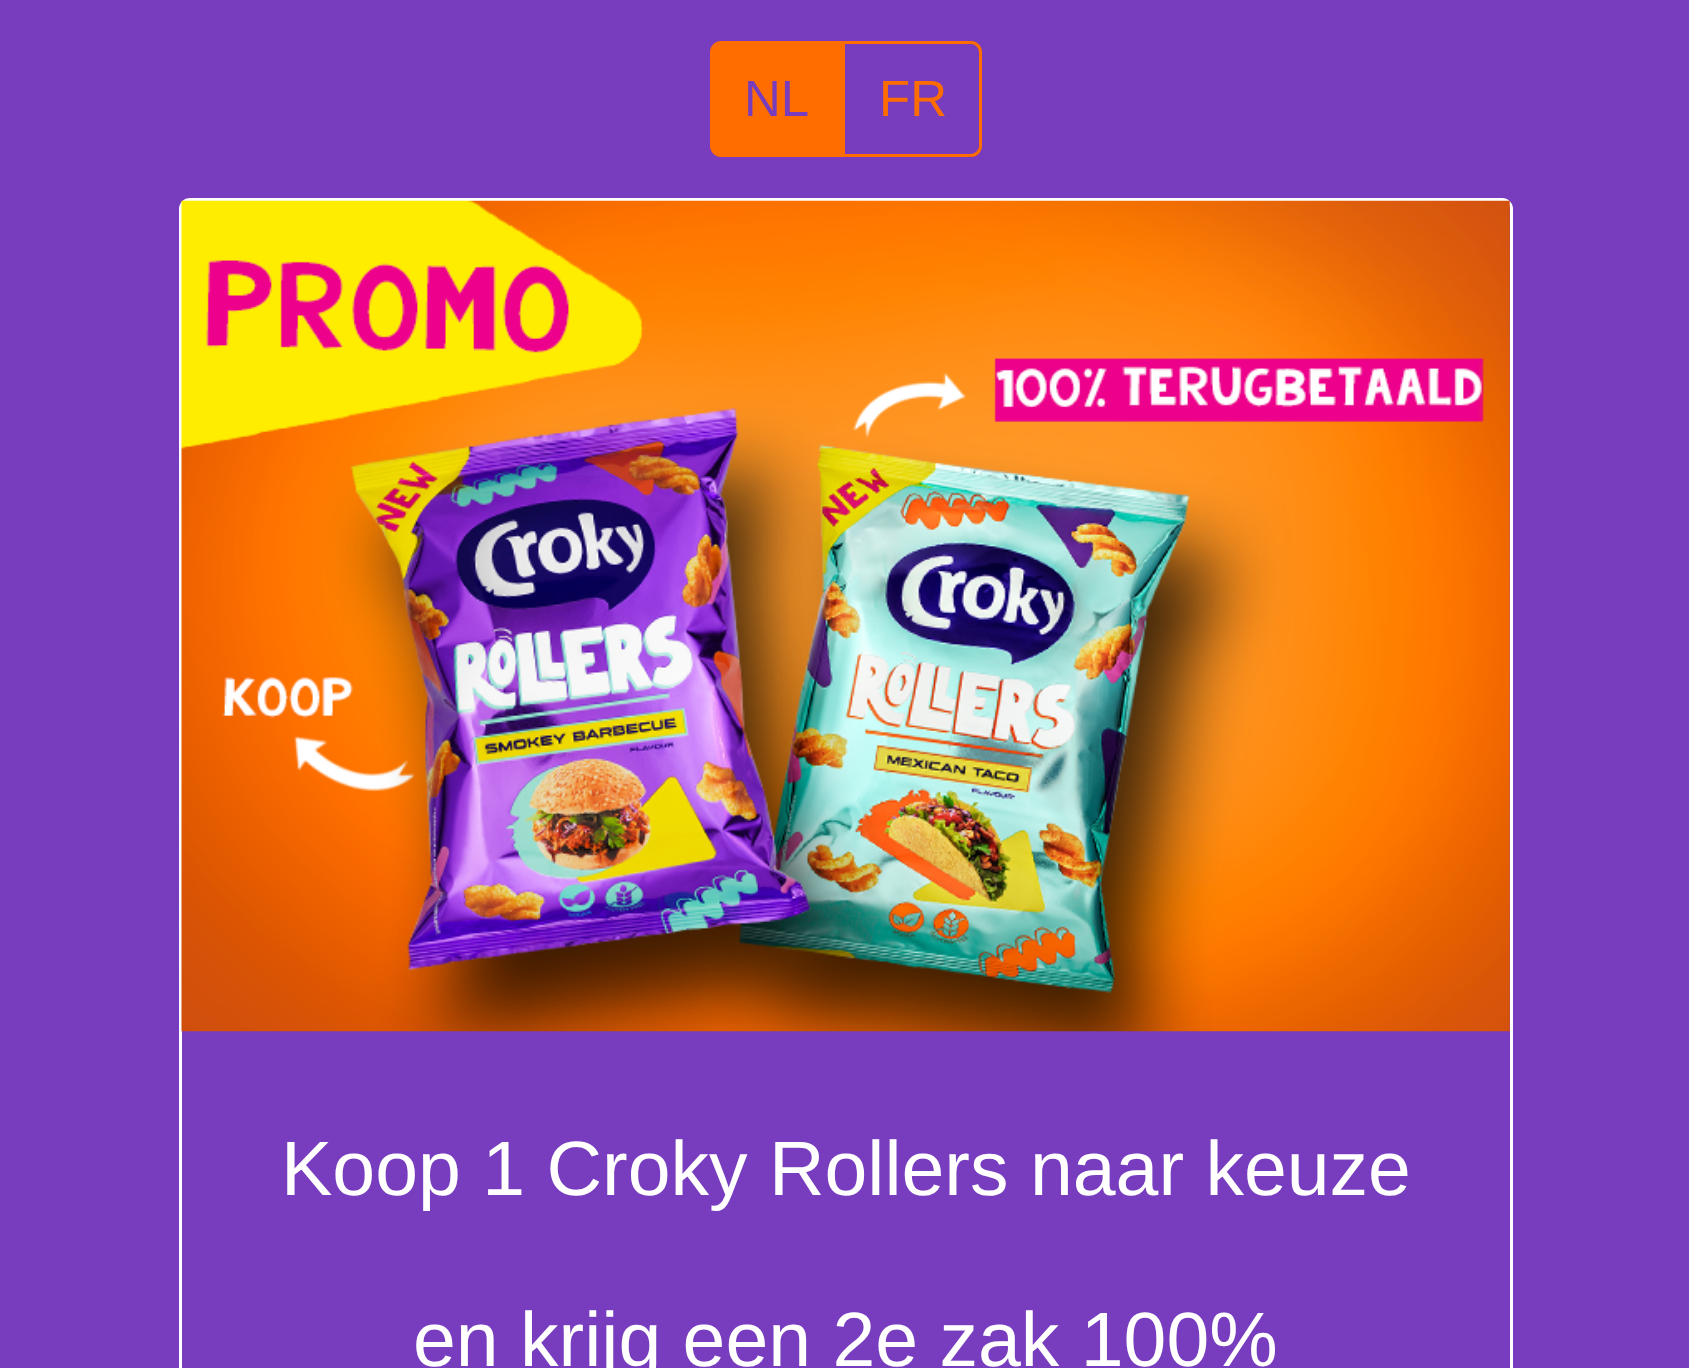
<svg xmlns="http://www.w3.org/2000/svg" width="1689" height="1368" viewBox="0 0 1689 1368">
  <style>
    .t1 { font: 51px Liberation Sans; fill: #773dbe; }
    .t2 { font: 51px Liberation Sans; fill: #ff6c00; }
    .t3 { font: 77px Liberation Sans; fill: #fff; }
  </style>
  <rect width="100%" height="100%" fill="#773dbe"/>
  <path d="M843.5 42.5H971C976 42.5 980.5 47 980.5 52V146C980.5 151 976 155.5 971 155.5H843.5Z" fill="none" stroke="#ff6c00" stroke-width="3"/>
  <path d="M721 42.5H842.5V155.5H721C716 155.5 711.5 151 711.5 146V52C711.5 47 716 42.5 721 42.5Z" fill="#ff6c00" stroke="#ff6c00" stroke-width="3"/>
  <text x="744" y="116" class="t1">NL</text>
  <text x="879" y="116" class="t2">FR</text>
  <rect x="180.5" y="199.5" width="1331" height="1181" rx="9.5" fill="none" stroke="#fff" stroke-width="3"/>
  <image x="181" y="200" width="1329" height="832" href="images/1.png"/>
  <text x="281" y="1195" class="t3">Koop 1 Croky Rollers naar keuze</text>
  <text x="413" y="1366" class="t3">en krijg een 2e zak 100%</text>
</svg>
